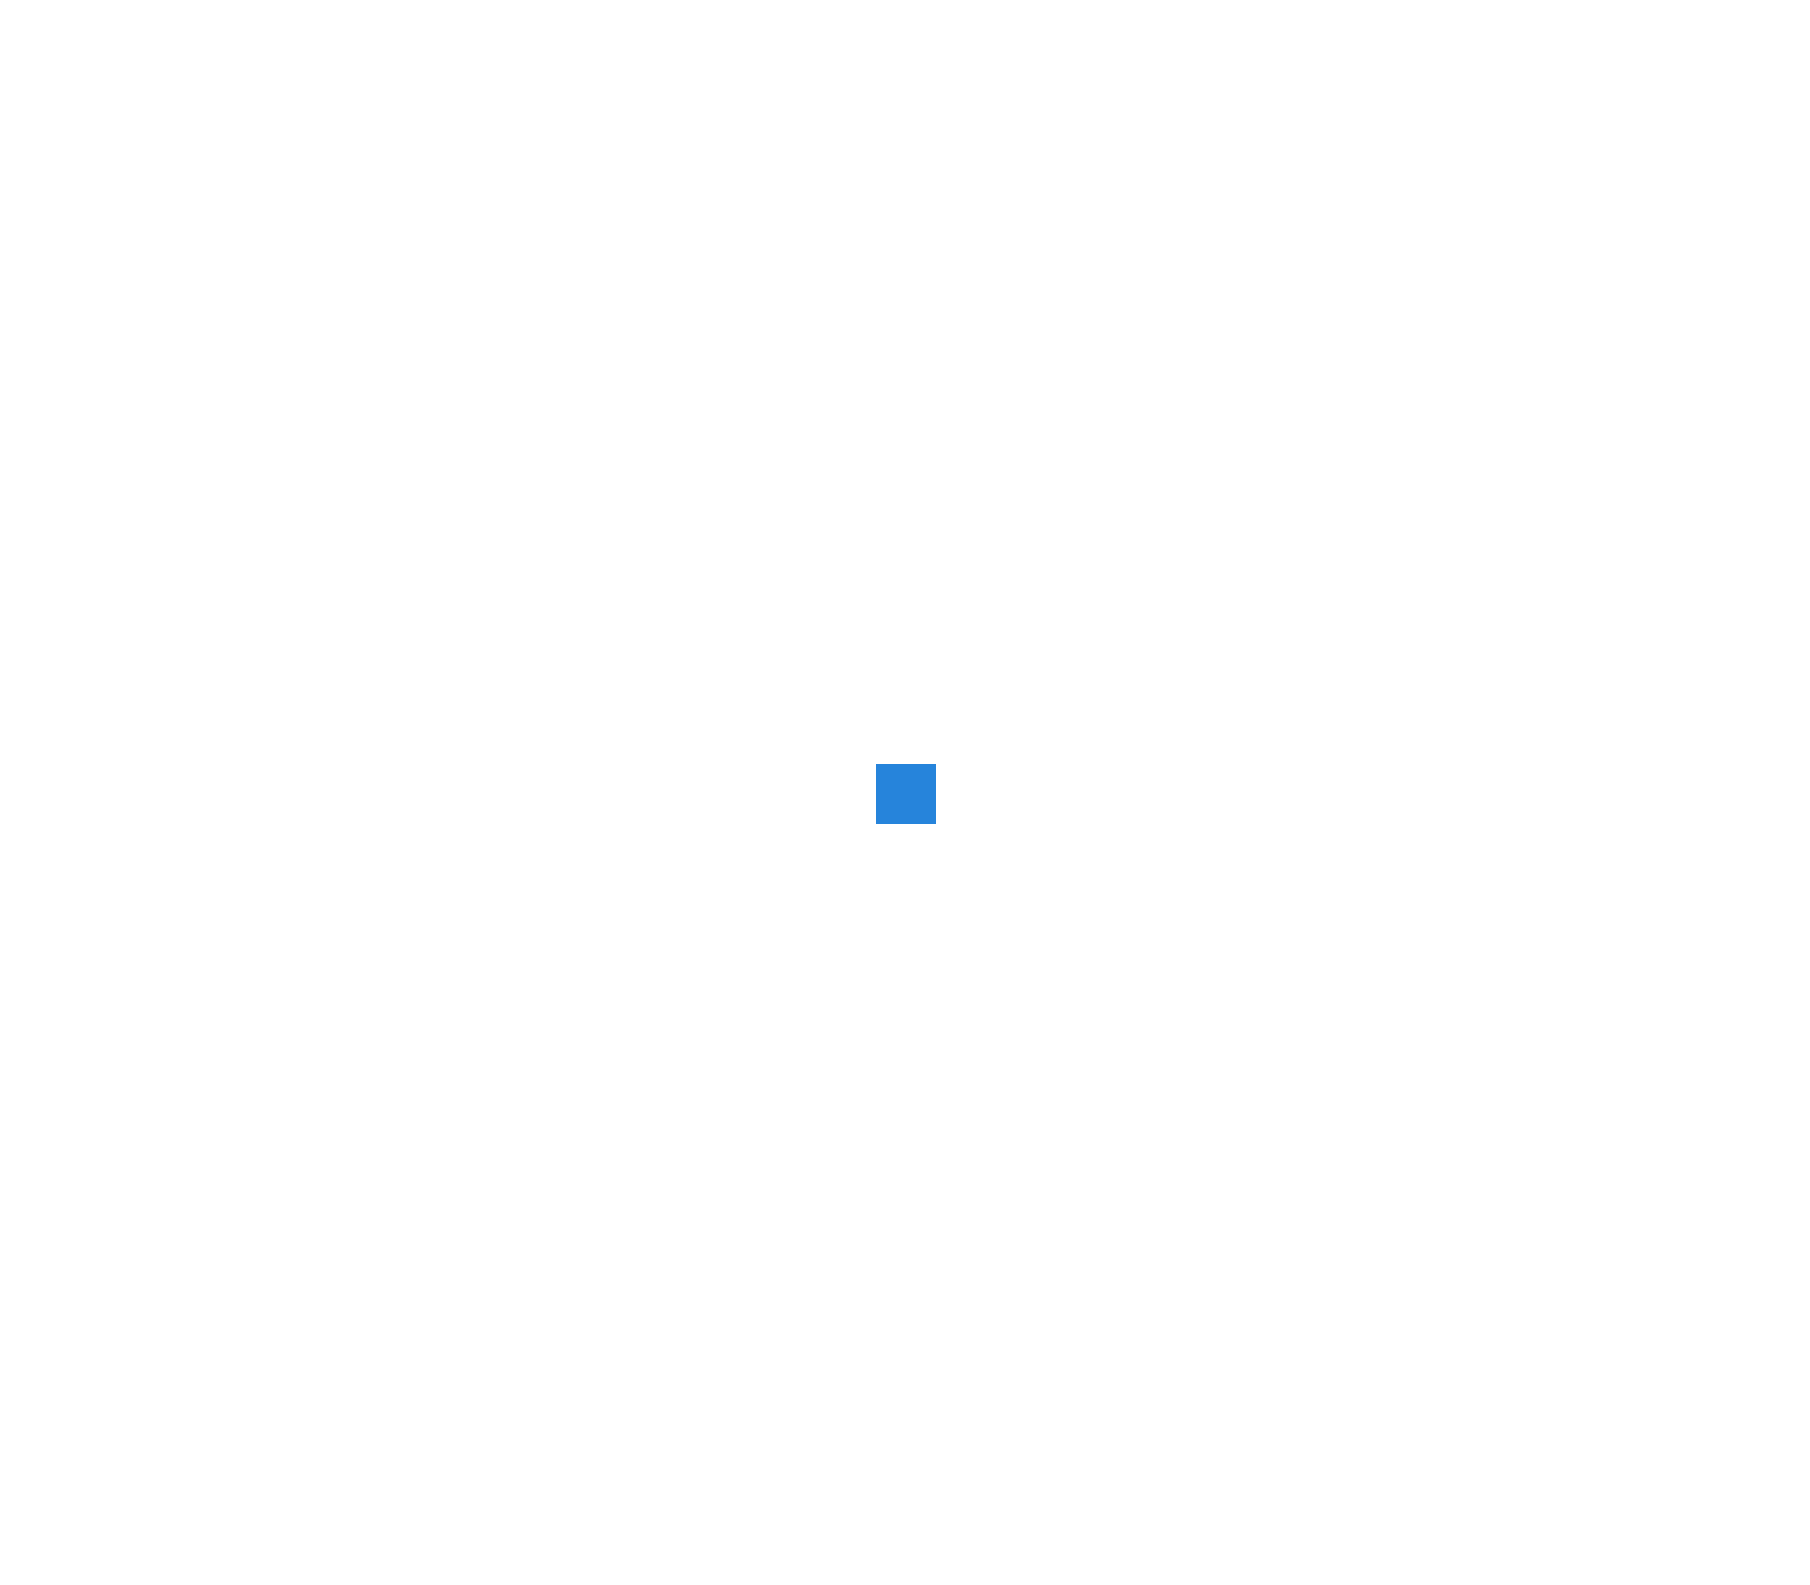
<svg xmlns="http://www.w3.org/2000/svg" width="1810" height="1585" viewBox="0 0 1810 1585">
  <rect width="100%" height="100%" fill="#fff"/>
  <rect x="876" y="764" width="60" height="60" fill="#2684db"/>
</svg>
